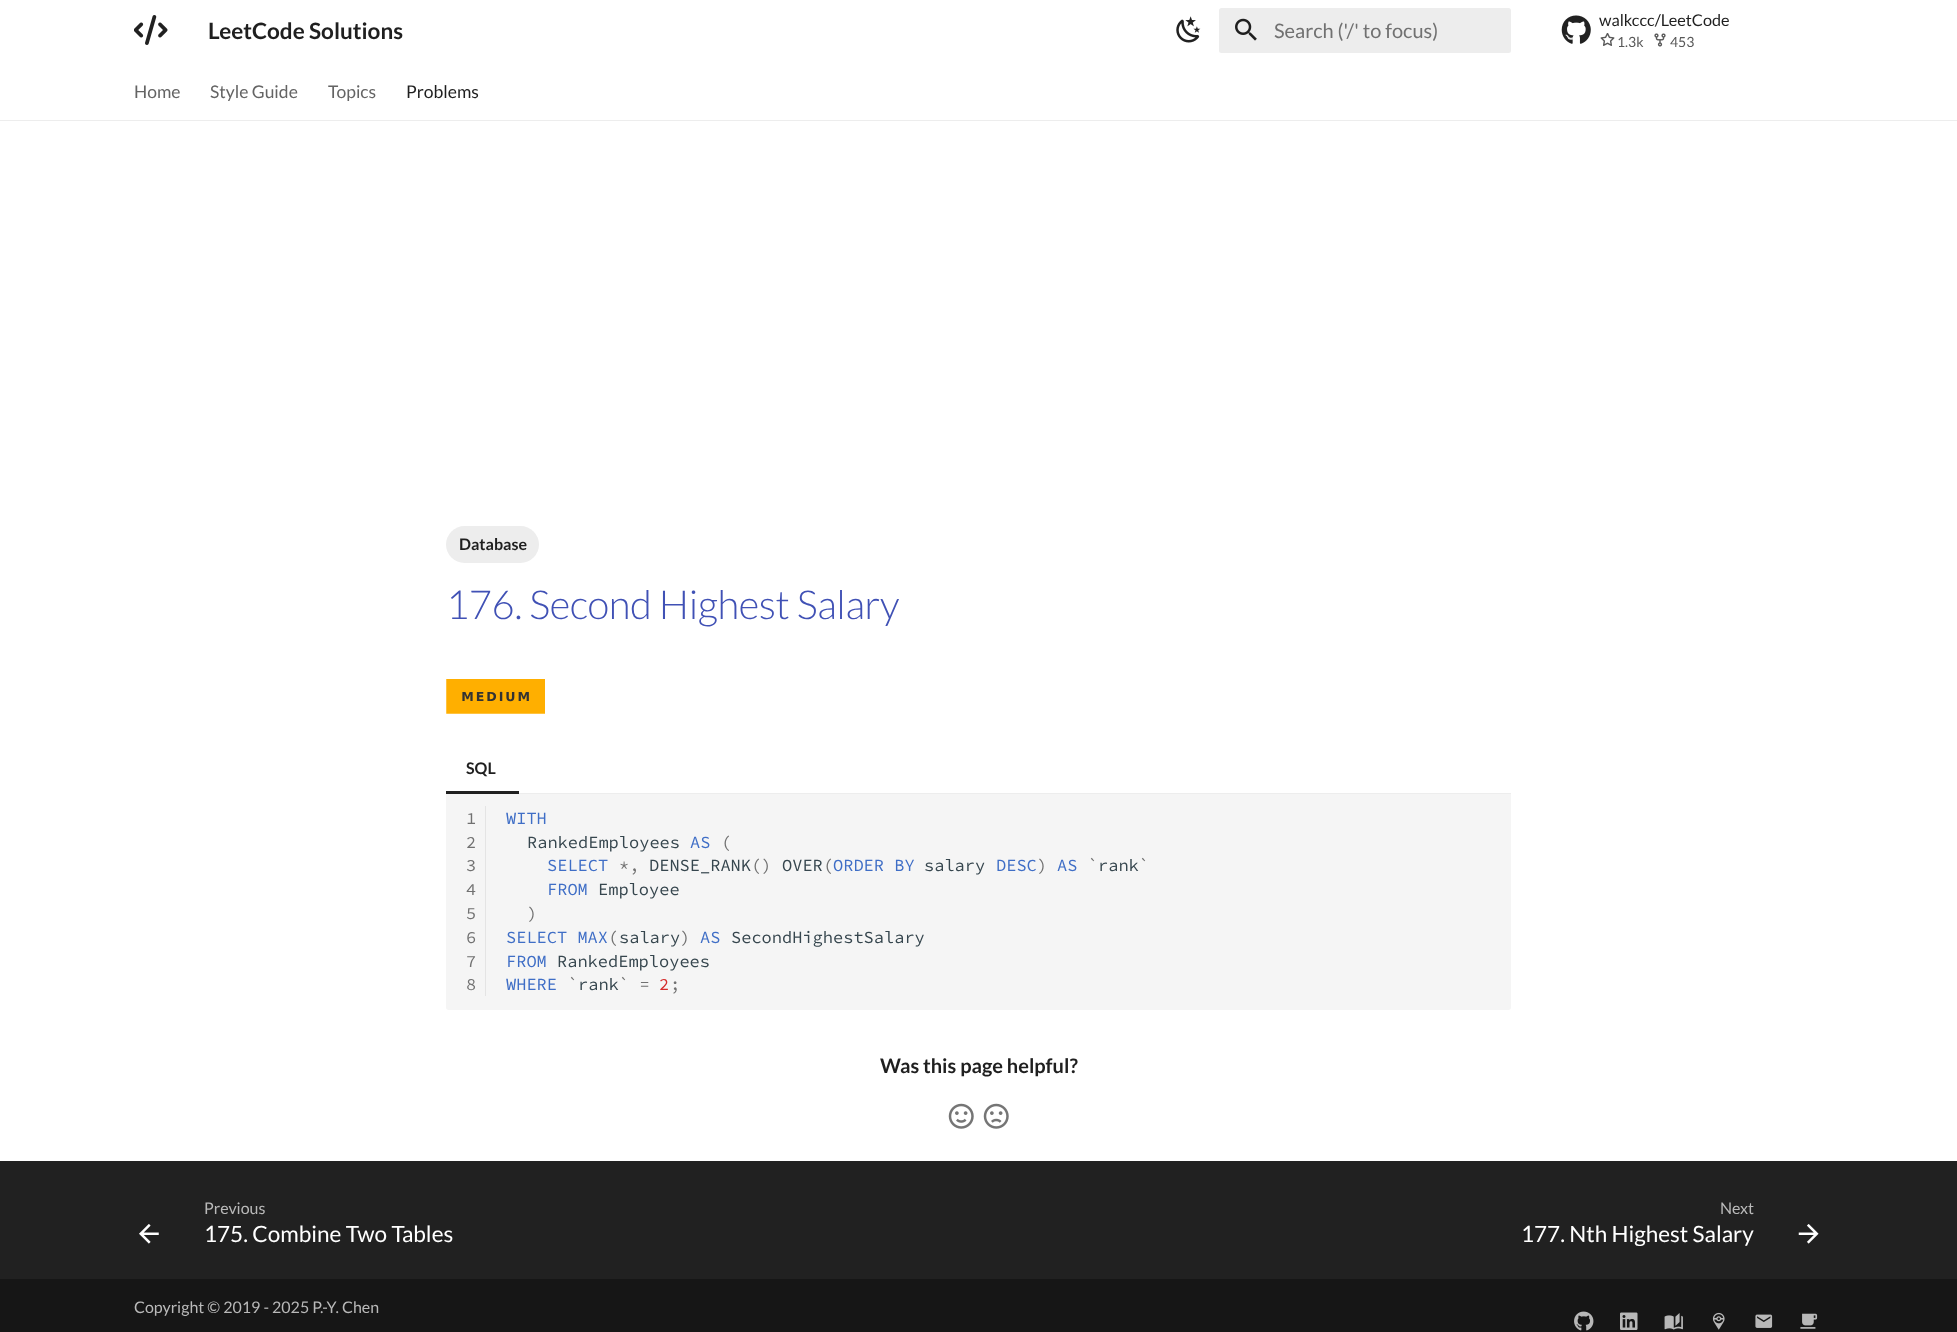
<svg xmlns="http://www.w3.org/2000/svg" width="1957" height="1332" viewBox="0 0 1957 1332">
  <style>
    .t1 { font: bold 22.5px Lato; fill: #1f1f1f; }
    .t2 { font: 20px Lato; fill: #717171; }
    .t3 { font: 16.25px Lato; fill: #1f1f1f; }
    .t4 { font: 14px Lato; fill: #595959; }
    .t5 { font: 17.5px Lato; fill: #646464; }
    .t6 { font: 17.5px Lato; fill: #1f1f1f; }
    .t7 { font: bold 16px Lato; fill: #1f1f1f; }
    .t8 { font: 300 40px Lato; letter-spacing: -0.4px; fill: #4051b5; }
    .t9 { font: 17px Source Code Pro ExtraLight; fill: #717171; }
    .t10 { font: 17px Source Code Pro ExtraLight; fill: #3f6ec6; }
    .t11 { font: 17px Source Code Pro ExtraLight; fill: #36464e; }
    .t12 { font: 17px Source Code Pro ExtraLight; fill: #d52a2a; }
    .t13 { font: bold 20px Lato; fill: #1f1f1f; }
    .t14 { font: 16px Lato; fill: #b9b9b9; }
    .t15 { font: 22.5px Lato; fill: #fff; }
  </style>
  <rect width="100%" height="100%" fill="#fff"/>
  <rect x="446" y="791" width="73" height="2" fill="#212121"/>
  <image x="134" y="15" width="34" height="30" href="images/1.png"/>
  <text x="208" y="39" class="t1">LeetCode Solutions</text>
  <image x="1176" y="16" width="25" height="27" href="images/2.png"/>
  <rect x="1219" y="8" width="292" height="45" rx="2.5" fill="#ededed"/>
  <image x="1235" y="18" width="22" height="23" href="images/3.png"/>
  <text x="1274" y="38" class="t2">Search ('/' to focus)</text>
  <image x="1561" y="15" width="30" height="29" href="images/4.png"/>
  <text x="1599" y="26" class="t3">walkccc/LeetCode</text>
  <image x="1600" y="33" width="15" height="13" href="images/5.png"/>
  <text x="1617" y="47" class="t4">1.3k</text>
  <image x="1654" y="33" width="12" height="14" href="images/6.png"/>
  <text x="1670" y="47" class="t4">453</text>
  <rect x="0" y="120" width="1957" height="1" fill="#ededed"/>
  <text x="134" y="98" class="t5">Home</text>
  <text x="210" y="98" class="t5">Style Guide</text>
  <text x="328" y="98" class="t5">Topics</text>
  <text x="406" y="98" class="t6">Problems</text>
  <rect x="446" y="526" width="93" height="37" rx="18.5" fill="#ededed"/>
  <text x="459" y="550" class="t7">Database</text>
  <text x="446" y="619" class="t8">176. Second Highest Salary</text>
  <image x="446" y="679" width="99" height="35" href="images/7.png"/>
  <rect x="519" y="793" width="992" height="1" fill="#ededed"/>
  <rect x="446" y="793" width="73" height="1" fill="#1f1f1f"/>
  <text x="466" y="774" class="t7">SQL</text>
  <path d="M446 794H486V1010H448.5C447 1010 446 1009 446 1007.5Z" fill="#f5f5f5"/>
  <rect x="485" y="806" width="1" height="190" fill="#e4e4e4"/>
  <text x="466" y="824" class="t9">1</text>
  <text x="466" y="848" class="t9">2</text>
  <text x="466" y="871" class="t9">3</text>
  <text x="466" y="895" class="t9">4</text>
  <text x="466" y="919" class="t9">5</text>
  <text x="466" y="943" class="t9">6</text>
  <text x="466" y="967" class="t9">7</text>
  <text x="466" y="990" class="t9">8</text>
  <path d="M486 794H1511V1007.5C1511 1009 1510 1010 1508.5 1010H486Z" fill="#f5f5f5"/>
  <text x="506" y="824" class="t10">WITH</text>
  <text x="527" y="848" class="t11">RankedEmployees</text>
  <text x="690" y="848" class="t10">AS</text>
  <text x="721" y="848" class="t9">(</text>
  <text x="547" y="871" class="t10">SELECT</text>
  <text x="619" y="871" class="t9">*,</text>
  <text x="649" y="871" class="t11">DENSE_RANK</text>
  <text x="751" y="871" class="t9">()</text>
  <text x="782" y="871" class="t11">OVER</text>
  <text x="823" y="871" class="t9">(</text>
  <text x="833" y="871" class="t10">ORDER BY</text>
  <text x="924" y="871" class="t11">salary</text>
  <text x="996" y="871" class="t10">DESC</text>
  <text x="1037" y="871" class="t9">)</text>
  <text x="1057" y="871" class="t10">AS</text>
  <text x="1088" y="871" class="t9">`</text>
  <text x="1098" y="871" class="t11">rank</text>
  <text x="1139" y="871" class="t9">`</text>
  <text x="547" y="895" class="t10">FROM</text>
  <text x="598" y="895" class="t11">Employee</text>
  <text x="527" y="919" class="t9">)</text>
  <text x="506" y="943" class="t10">SELECT MAX</text>
  <text x="608" y="943" class="t9">(</text>
  <text x="619" y="943" class="t11">salary</text>
  <text x="680" y="943" class="t9">)</text>
  <text x="700" y="943" class="t10">AS</text>
  <text x="731" y="943" class="t11">SecondHighestSalary</text>
  <text x="506" y="967" class="t10">FROM</text>
  <text x="557" y="967" class="t11">RankedEmployees</text>
  <text x="506" y="990" class="t10">WHERE</text>
  <text x="568" y="990" class="t9">`</text>
  <text x="578" y="990" class="t11">rank</text>
  <text x="619" y="990" class="t9">` =</text>
  <text x="659" y="990" class="t12">2</text>
  <text x="670" y="990" class="t9">;</text>
  <text x="880" y="1073" class="t13">Was this page helpful?</text>
  <image x="948" y="1103" width="26" height="26" href="images/8.png"/>
  <image x="983" y="1103" width="26" height="26" href="images/9.png"/>
  <rect x="0" y="1161" width="1957" height="118" fill="#212121"/>
  <image x="139" y="1224" width="20" height="20" href="images/10.png"/>
  <text x="204" y="1214" class="t14">Previous</text>
  <text x="204" y="1242" class="t15">175. Combine Two Tables</text>
  <text x="1720" y="1214" class="t14">Next</text>
  <text x="1521" y="1242" class="t15">177. Nth Highest Salary</text>
  <image x="1798" y="1224" width="21" height="20" href="images/11.png"/>
  <rect x="0" y="1279" width="1957" height="53" fill="#161616"/>
  <text x="134" y="1313" class="t14">Copyright © 2019 - 2025 P.-Y. Chen</text>
  <image x="1574" y="1311" width="20" height="20" href="images/12.png"/>
  <image x="1620" y="1312" width="18" height="18" href="images/13.png"/>
  <image x="1664" y="1313" width="19" height="17" href="images/14.png"/>
  <image x="1712" y="1312" width="13" height="18" href="images/15.png"/>
  <image x="1755" y="1314" width="18" height="14" href="images/16.png"/>
  <image x="1800" y="1313" width="18" height="16" href="images/17.png"/>
</svg>
